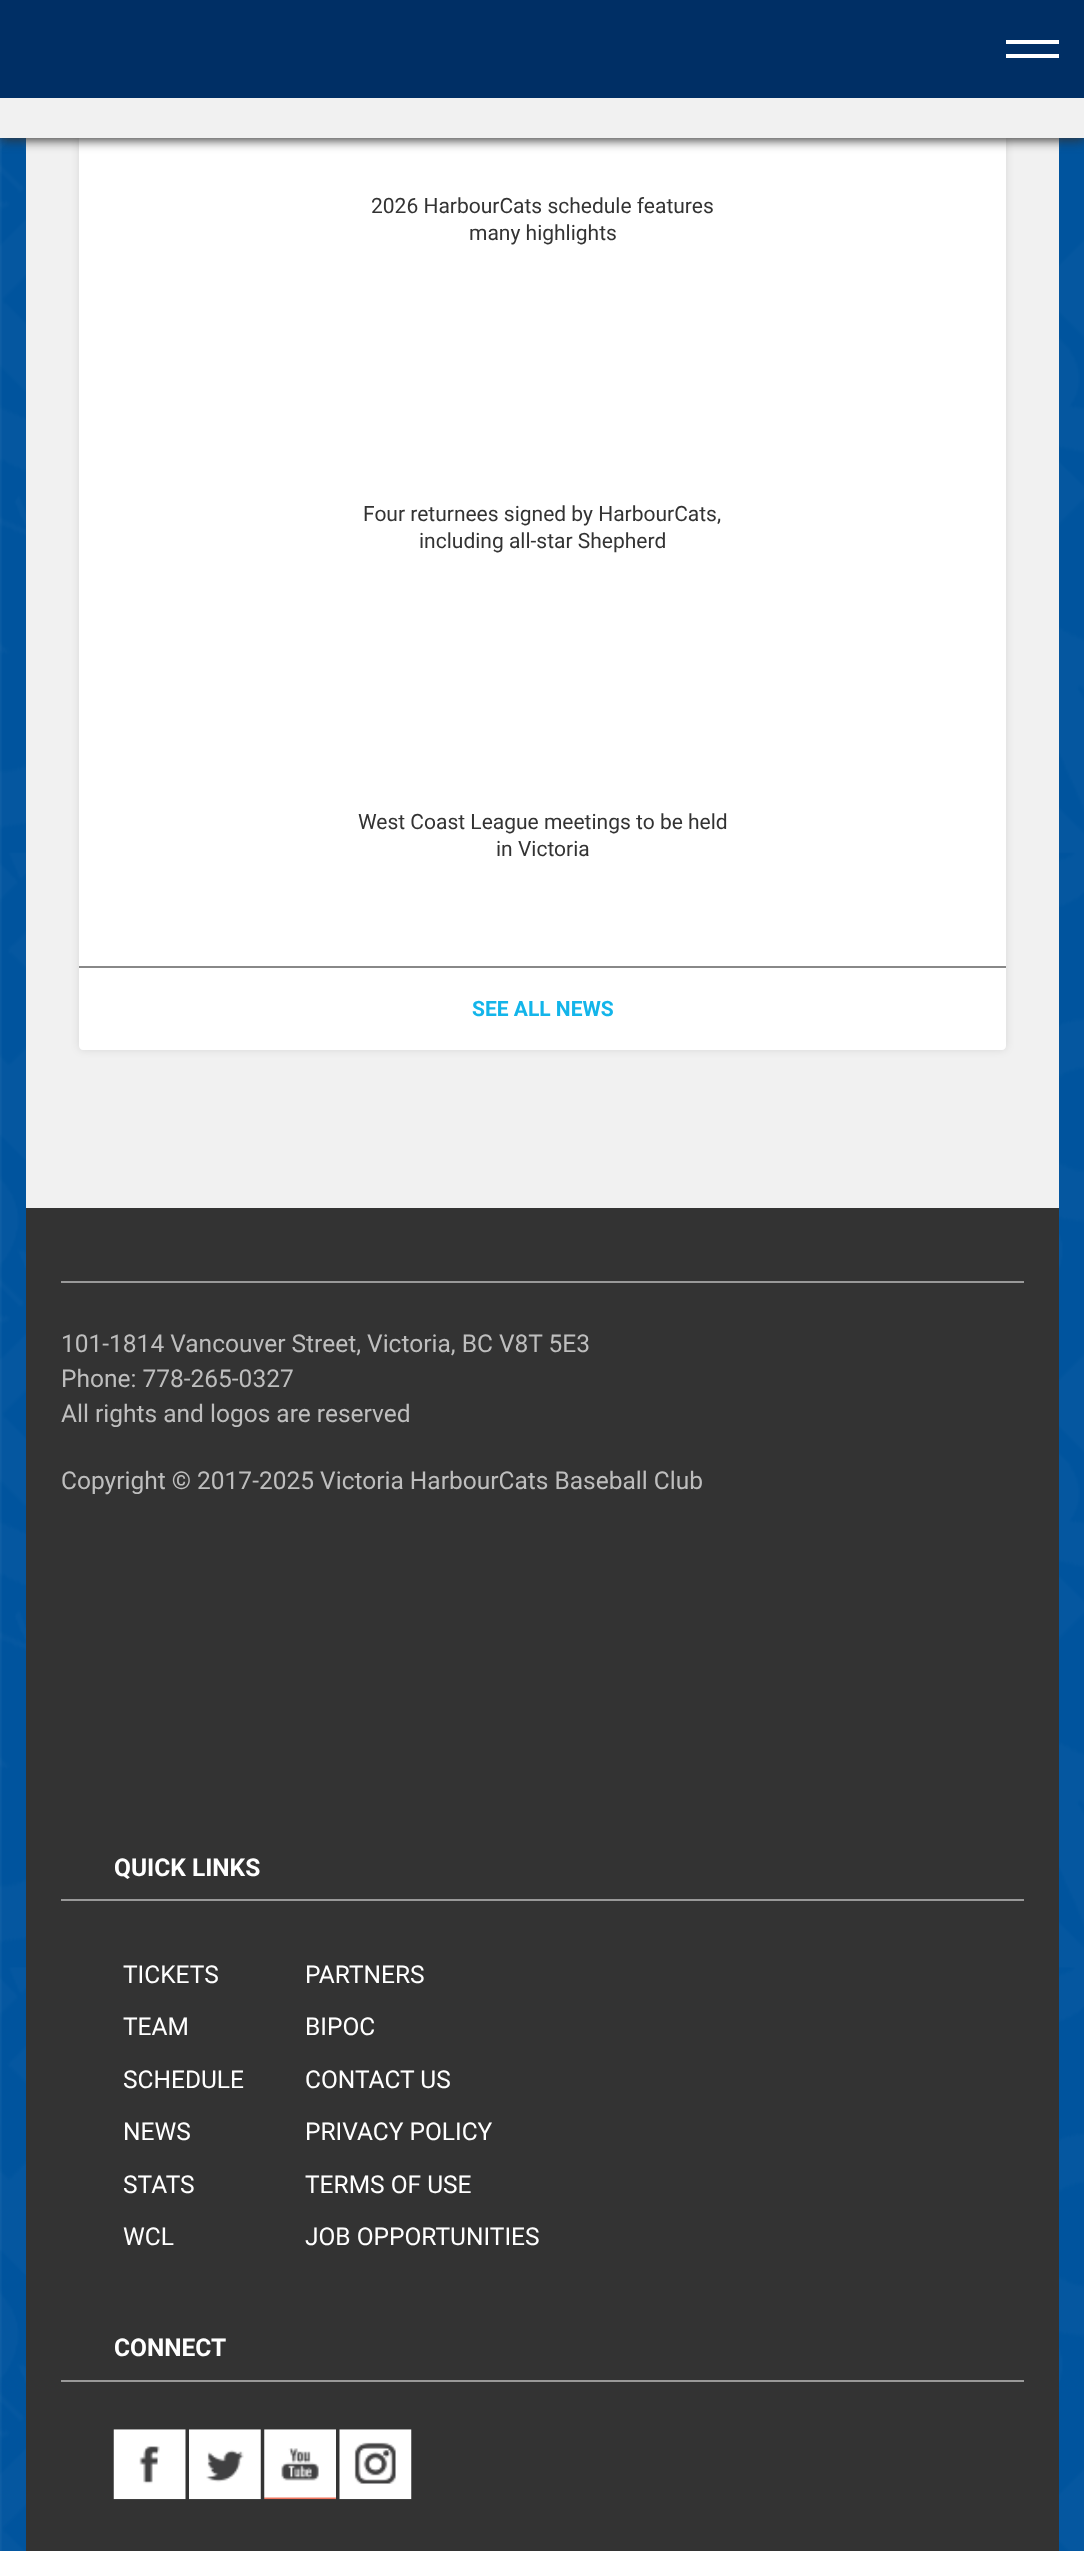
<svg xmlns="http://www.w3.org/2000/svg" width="1084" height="2551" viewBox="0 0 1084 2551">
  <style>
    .t1 { font: 21px Roboto; fill: #333; }
    .t2 { font: bold 21px Roboto; fill: #13b5ea; }
    .t3 { font: 24.5px Roboto; fill: #bebebe; }
    .t4 { font: bold 24.5px Roboto; fill: #fff; }
    .t5 { font: 24.5px Roboto; fill: #fff; }
  </style>
  <rect width="100%" height="100%" fill="#fff"/>
  <image x="0" y="138" width="1084" height="2413" href="images/1.png"/>
  <rect x="26" y="138" width="1033" height="1070" fill="#f1f1f1"/>
  <rect x="79" y="-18" width="927" height="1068" rx="4" fill="#0000001a" filter="blur(4.5px)"/>
  <path d="M79-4H1006V1046C1006 1048 1004 1050 1002 1050H83C81 1050 79 1048 79 1046Z" fill="#fff"/>
  <rect x="0" y="-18" width="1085" height="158" fill="#333" filter="blur(6px)"/>
  <rect x="0" y="0" width="1084" height="98" fill="#002f65"/>
  <rect x="1006" y="40" width="53" height="4" fill="#fff"/>
  <rect x="1006" y="54" width="53" height="4" fill="#fff"/>
  <rect x="0" y="98" width="1084" height="40" fill="#f1f1f1"/>
  <text x="371" y="213" class="t1">2026 HarbourCats schedule features</text>
  <text x="469" y="240" class="t1">many highlights</text>
  <text x="363" y="521" class="t1">Four returnees signed by HarbourCats,</text>
  <text x="419" y="548" class="t1">including all-star Shepherd</text>
  <text x="358" y="829" class="t1">West Coast League meetings to be held</text>
  <text x="496" y="856" class="t1">in Victoria</text>
  <rect x="79" y="966" width="927" height="2" fill="#888"/>
  <text x="472" y="1016" class="t2">SEE ALL NEWS</text>
  <rect x="26" y="1208" width="1033" height="1343" fill="#333"/>
  <rect x="61" y="1281" width="963" height="2" fill="#999"/>
  <text x="61" y="1352" class="t3">101-1814 Vancouver Street, Victoria, BC V8T 5E3</text>
  <text x="61" y="1387" class="t3">Phone: 778-265-0327</text>
  <text x="61" y="1422" class="t3">All rights and logos are reserved</text>
  <text x="61" y="1489" class="t3">Copyright © 2017-2025 Victoria HarbourCats Baseball Club</text>
  <rect x="61" y="1899" width="963" height="2" fill="#999"/>
  <text x="114" y="1876" class="t4">QUICK LINKS</text>
  <text x="123" y="1983" class="t5">TICKETS</text>
  <text x="123" y="2035" class="t5">TEAM</text>
  <text x="123" y="2088" class="t5">SCHEDULE</text>
  <text x="123" y="2140" class="t5">NEWS</text>
  <text x="123" y="2193" class="t5">STATS</text>
  <text x="123" y="2245" class="t5">WCL</text>
  <text x="305" y="1983" class="t5">PARTNERS</text>
  <text x="305" y="2035" class="t5">BIPOC</text>
  <text x="305" y="2088" class="t5">CONTACT US</text>
  <text x="305" y="2140" class="t5">PRIVACY POLICY</text>
  <text x="305" y="2193" class="t5">TERMS OF USE</text>
  <text x="305" y="2245" class="t5">JOB OPPORTUNITIES</text>
  <rect x="61" y="2380" width="963" height="2" fill="#999"/>
  <text x="114" y="2356" class="t4">CONNECT</text>
  <image x="113" y="2429" width="73" height="71" href="images/2.png"/>
  <image x="189" y="2429" width="72" height="71" href="images/3.png"/>
  <image x="264" y="2429" width="72" height="71" href="images/4.png"/>
  <image x="339" y="2429" width="73" height="71" href="images/5.png"/>
</svg>
